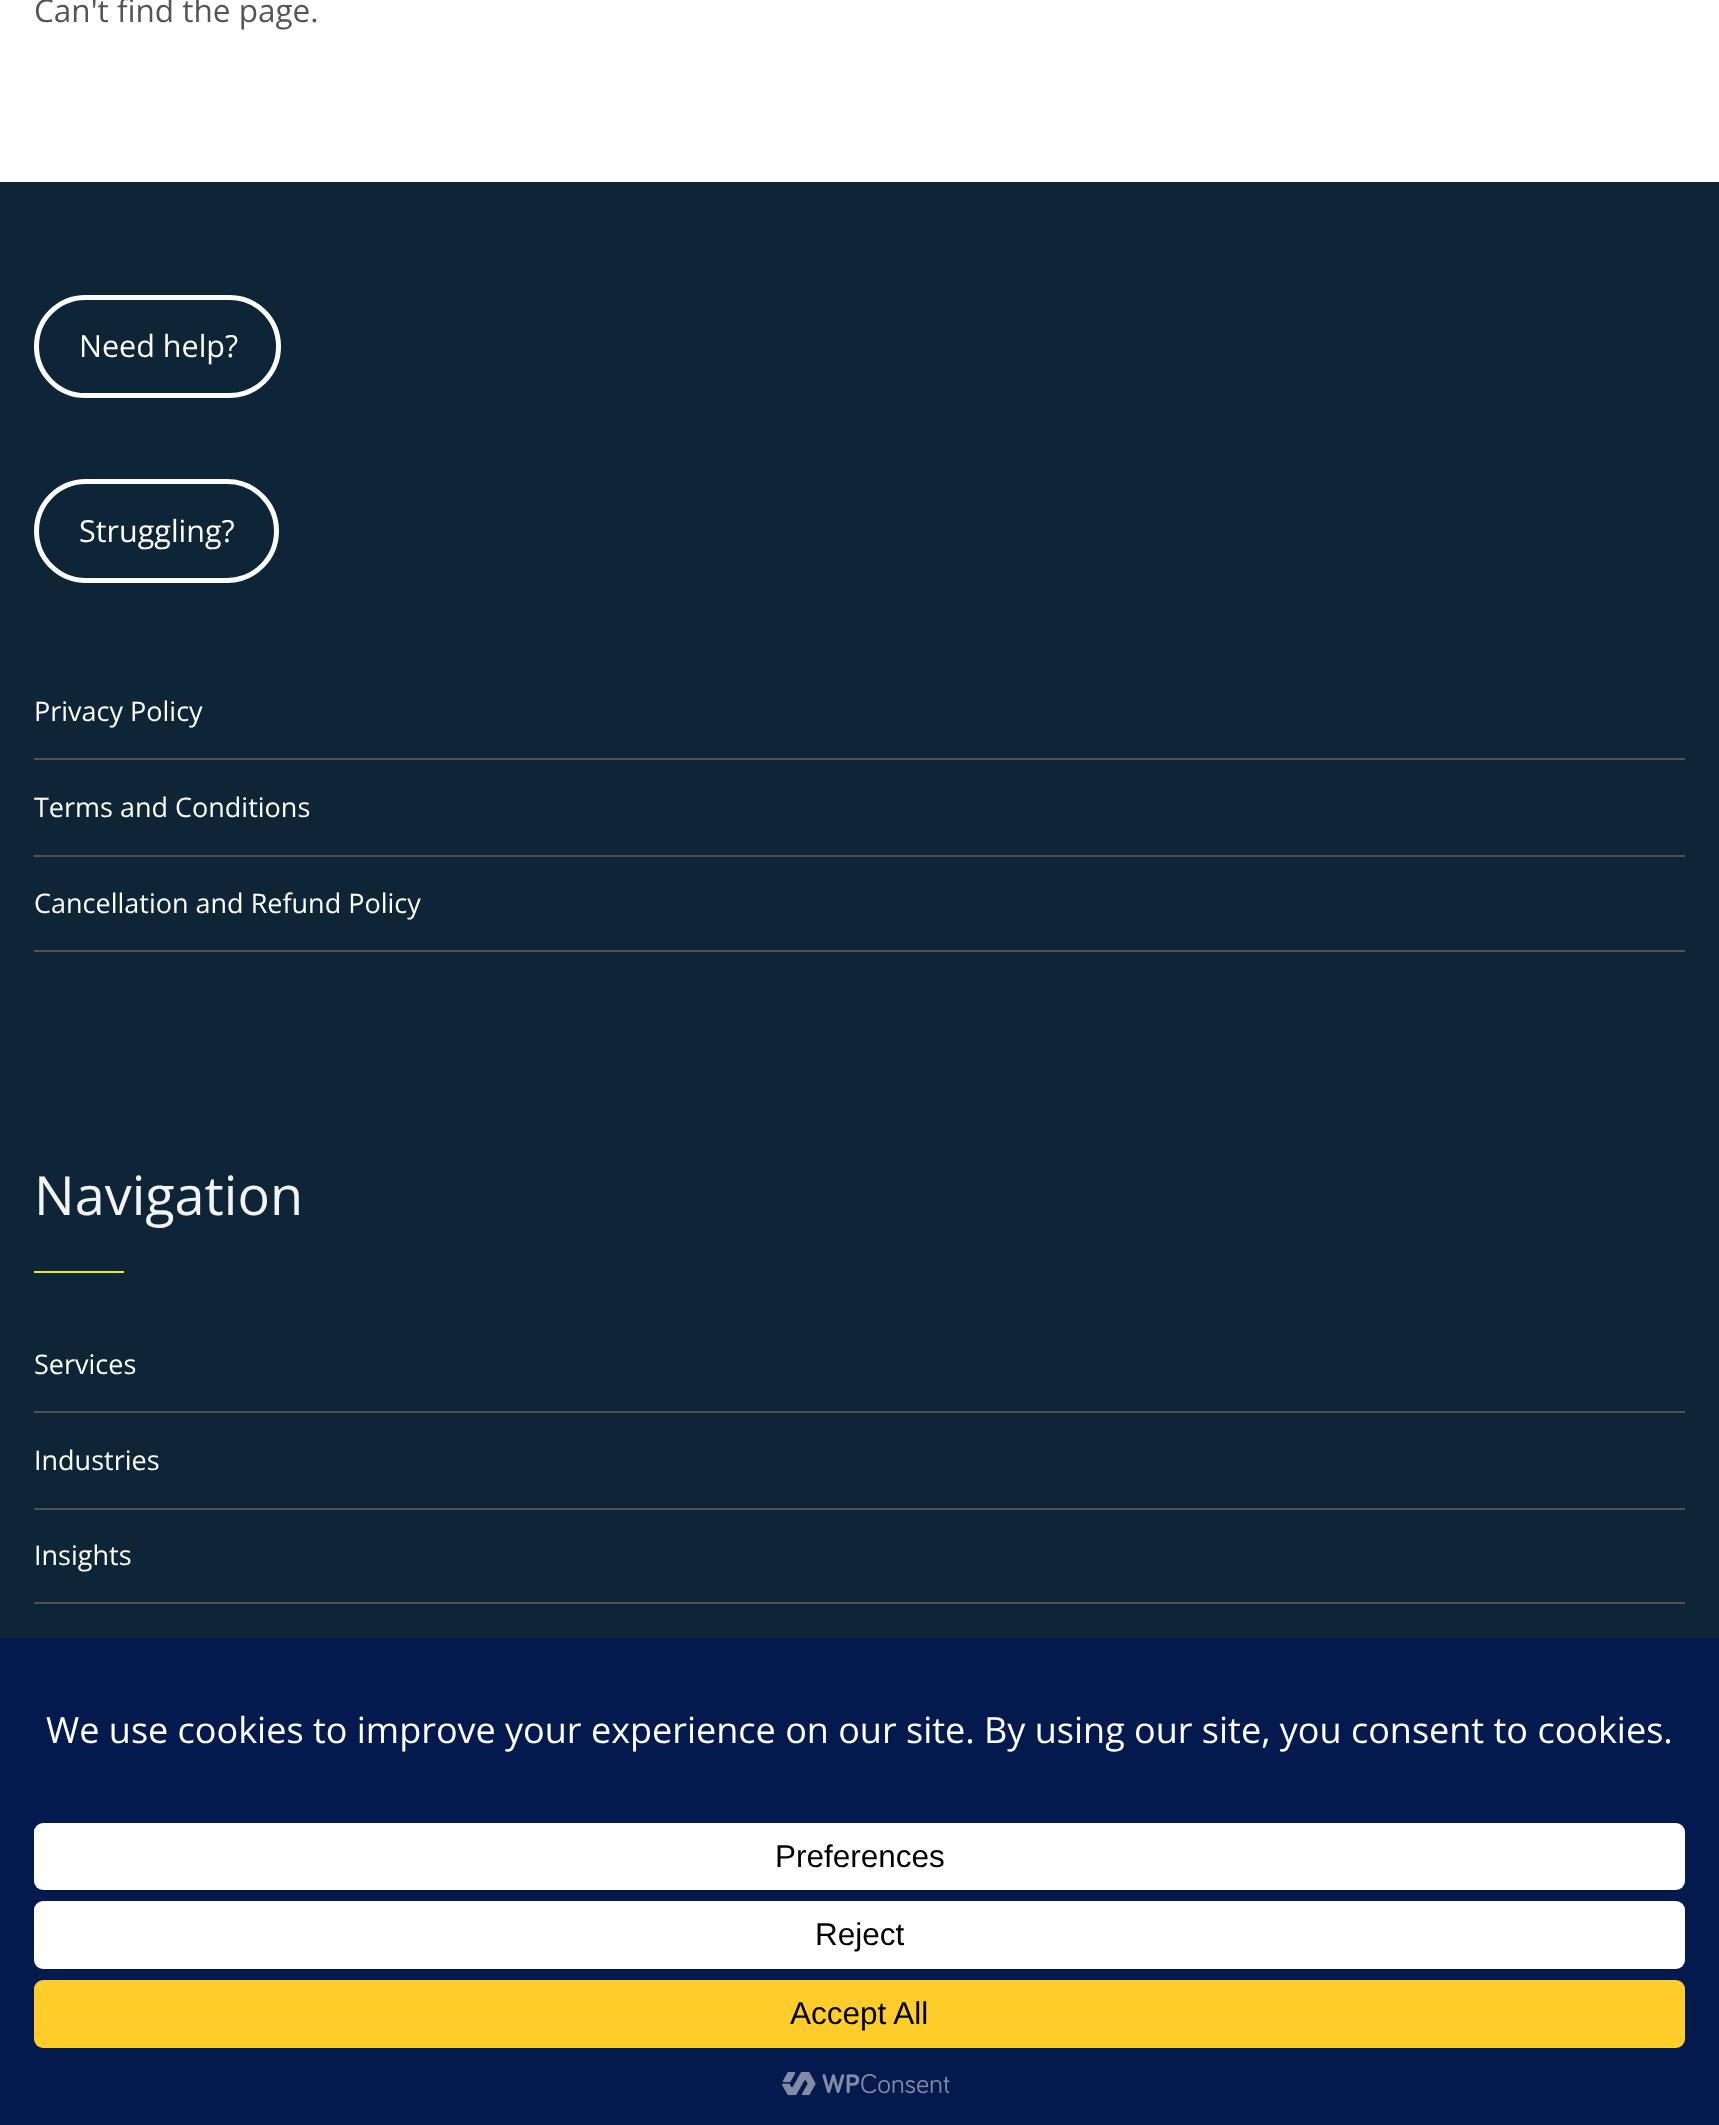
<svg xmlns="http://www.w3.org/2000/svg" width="1719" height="2125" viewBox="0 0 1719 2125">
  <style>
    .t1 { font: 31.5px Open Sans; fill: #555; }
    .t2 { font: 30.5px Open Sans; fill: #fff; }
    .t3 { font: 27px Open Sans; fill: #fff; }
    .t4 { font: 54px Open Sans; fill: #f3f3f3; }
    .t5 { font: 36px Open Sans; fill: #fff; }
    .t6 { font: 31.5px Liberation Sans; fill: #000; }
  </style>
  <rect width="100%" height="100%" fill="#fff"/>
  <text x="34" y="22" class="t1">Can't find the page.</text>
  <rect x="0" y="182" width="1719" height="1456" fill="#0e2538"/>
  <rect x="36.5" y="297.5" width="242" height="98" rx="49" fill="none" stroke="#fff" stroke-width="5"/>
  <text x="79" y="357" class="t2">Need help?</text>
  <rect x="36.5" y="481.5" width="240" height="99" rx="49.5" fill="none" stroke="#fff" stroke-width="5"/>
  <text x="79" y="542" class="t2">Struggling?</text>
  <rect x="34" y="758" width="1651" height="2" fill="#515151"/>
  <text x="34" y="721" class="t3">Privacy Policy</text>
  <rect x="34" y="855" width="1651" height="2" fill="#515151"/>
  <text x="34" y="817" class="t3">Terms and Conditions</text>
  <rect x="34" y="950" width="1651" height="2" fill="#515151"/>
  <text x="34" y="913" class="t3">Cancellation and Refund Policy</text>
  <text x="34" y="1215" class="t4">Navigation</text>
  <rect x="34" y="1271" width="90" height="2" fill="#eded0b"/>
  <rect x="34" y="1411" width="1651" height="2" fill="#515151"/>
  <text x="34" y="1374" class="t3">Services</text>
  <rect x="34" y="1508" width="1651" height="2" fill="#515151"/>
  <text x="34" y="1470" class="t3">Industries</text>
  <rect x="34" y="1602" width="1651" height="2" fill="#515151"/>
  <text x="34" y="1565" class="t3">Insights</text>
  <rect x="0" y="1638" width="1719" height="487" fill="#04194e"/>
  <text x="46" y="1743" class="t5">We use cookies to improve your experience on our site. By using our site, you consent to cookies.</text>
  <rect x="34" y="1823" width="1651" height="67" rx="9" fill="#fff"/>
  <text x="775" y="1867" class="t6">Preferences</text>
  <rect x="34" y="1901" width="1651" height="68" rx="9" fill="#fff"/>
  <text x="815" y="1945" class="t6">Reject</text>
  <rect x="34" y="1980" width="1651" height="68" rx="9" fill="#ffcd2a"/>
  <text x="790" y="2024" class="t6">Accept All</text>
  <image x="782" y="2072" width="168" height="24" href="images/1.png"/>
</svg>
